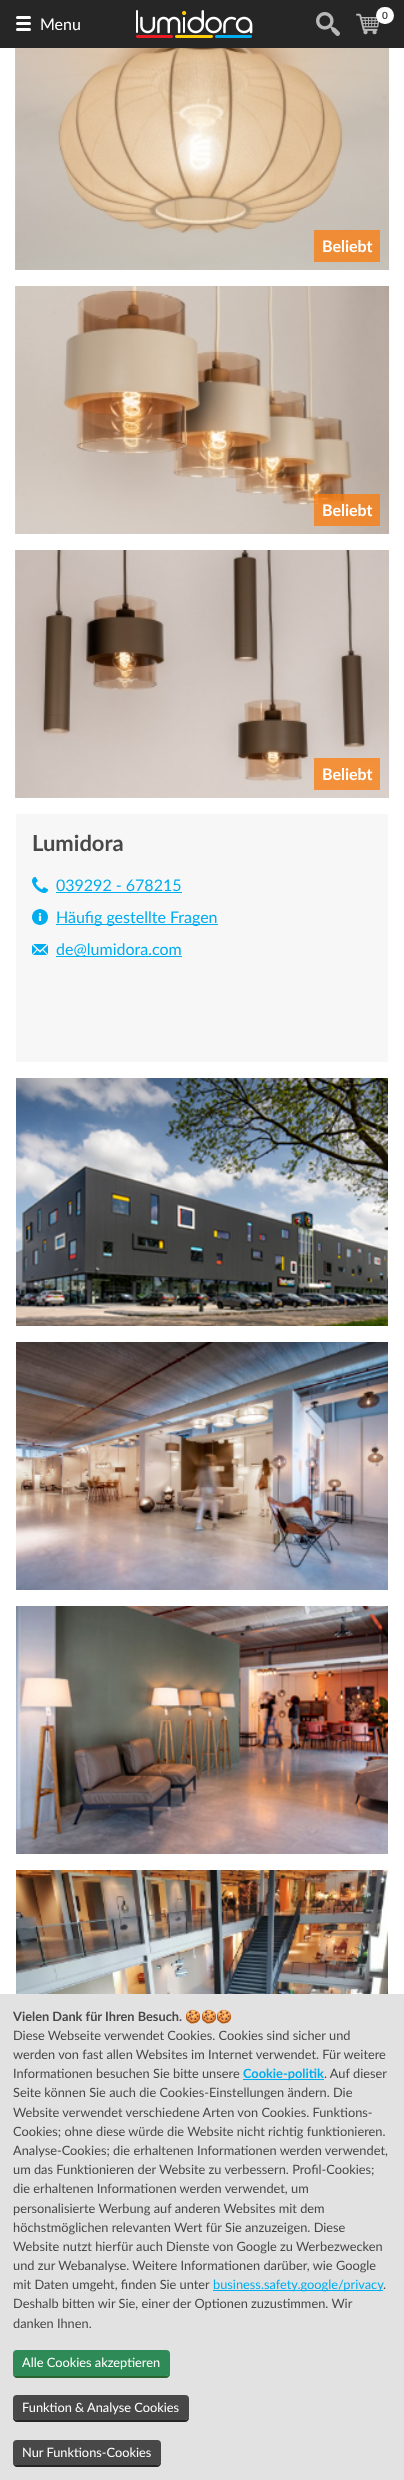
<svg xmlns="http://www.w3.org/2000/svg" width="404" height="2480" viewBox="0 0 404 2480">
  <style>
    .t1 { font: bold 10px Lato; fill: #484848; }
    .t2 { font: 16px Lato; fill: #fff; }
    .t3 { font: bold 16px Lato; fill: #fff; }
    .t4 { font: bold 22px Lato; fill: #484848; }
    .t5 { font: 16px Lato; fill: #00adef; }
    .t6 { font: bold 12.8px Lato; fill: #484848; }
    .t7 { font: bold 12.8px Noto Color Emoji; fill: #484848; }
    .t8 { font: 12.8px Lato; fill: #484848; }
    .t9 { font: bold 12.8px Lato; fill: #00adef; }
    .t10 { font: 12.8px Lato; fill: #00adef; }
    .t11 { font: 12.8px Lato; fill: #fff; }
  </style>
  <rect width="100%" height="100%" fill="#fff"/>
  <rect x="0" y="0" width="404" height="48" fill="#262626"/>
  <image x="136" y="10" width="117" height="28" href="images/1.png"/>
  <image x="316" y="12" width="24" height="24" href="images/2.png"/>
  <image x="356" y="13" width="24" height="22" href="images/3.png"/>
  <rect x="376" y="7" width="18" height="17" rx="8.5" fill="#fff"/>
  <text x="382" y="19" class="t1">0</text>
  <rect x="16" y="22" width="15" height="3" rx="1.5" fill="#fff"/>
  <rect x="16" y="16" width="15" height="3" rx="1.5" fill="#fff"/>
  <rect x="16" y="28" width="15" height="3" rx="1.5" fill="#fff"/>
  <text x="40" y="30" class="t2">Menu</text>
  <image x="15" y="48" width="375" height="222" href="images/4.png"/>
  <rect x="314" y="230" width="66" height="32" fill="#fc7b0abf"/>
  <text x="322" y="252" class="t3">Beliebt</text>
  <image x="15" y="286" width="375" height="248" href="images/5.png"/>
  <rect x="314" y="494" width="66" height="32" fill="#fc7b0abf"/>
  <text x="322" y="516" class="t3">Beliebt</text>
  <image x="15" y="550" width="375" height="248" href="images/6.png"/>
  <rect x="314" y="758" width="66" height="32" fill="#fc7b0abf"/>
  <text x="322" y="780" class="t3">Beliebt</text>
  <rect x="16" y="814" width="372" height="248" fill="#f7f7f7"/>
  <text x="32" y="851" class="t4">Lumidora</text>
  <image x="32" y="877" width="16" height="16" href="images/7.png"/>
  <text x="56" y="891" class="t5">039292 - 678215</text>
  <rect x="56" y="892" width="126" height="1" fill="#00adef"/>
  <image x="32" y="909" width="16" height="16" href="images/8.png"/>
  <rect x="56" y="924" width="162" height="1" fill="#00adef"/>
  <text x="56" y="923" class="t5">Häufig gestellte Fragen</text>
  <image x="32" y="944" width="16" height="11" href="images/9.png"/>
  <rect x="56" y="956" width="126" height="1" fill="#00adef"/>
  <text x="56" y="955" class="t5">de@lumidora.com</text>
  <image x="16" y="1078" width="372" height="248" href="images/10.png"/>
  <image x="16" y="1342" width="372" height="248" href="images/11.png"/>
  <image x="16" y="1606" width="372" height="248" href="images/12.png"/>
  <image x="16" y="1870" width="372" height="124" href="images/13.png"/>
  <rect x="0" y="1994" width="404" height="486" fill="#e2e2e2"/>
  <text x="13" y="2021" class="t6">Vielen Dank für Ihren Besuch.</text>
  <text x="185" y="2021" class="t7">🍪🍪🍪</text>
  <text x="13" y="2040" class="t8">Diese Webseite verwendet Cookies. Cookies sind sicher und</text>
  <text x="13" y="2059" class="t8">werden von fast allen Websites im Internet verwendet. Für weitere</text>
  <text x="13" y="2078" class="t8">Informationen besuchen Sie bitte unsere</text>
  <rect x="243" y="2079" width="81" height="1" fill="#00adef"/>
  <text x="243" y="2078" class="t9">Cookie-politik</text>
  <text x="324" y="2078" class="t8">. Auf dieser</text>
  <text x="13" y="2097" class="t8">Seite können Sie auch die Cookies-Einstellungen ändern. Die</text>
  <text x="13" y="2117" class="t8">Website verwendet verschiedene Arten von Cookies. Funktions-</text>
  <text x="13" y="2136" class="t8">Cookies; ohne diese würde die Website nicht richtig funktionieren.</text>
  <text x="13" y="2155" class="t8">Analyse-Cookies; die erhaltenen Informationen werden verwendet,</text>
  <text x="13" y="2174" class="t8">um das Funktionieren der Website zu verbessern. Profil-Cookies;</text>
  <text x="13" y="2193" class="t8">die erhaltenen Informationen werden verwendet, um</text>
  <text x="13" y="2213" class="t8">personalisierte Werbung auf anderen Websites mit dem</text>
  <text x="13" y="2232" class="t8">höchstmöglichen relevanten Wert für Sie anzuzeigen. Diese</text>
  <text x="13" y="2251" class="t8">Website nutzt hierfür auch Dienste von Google zu Werbezwecken</text>
  <text x="13" y="2270" class="t8">und zur Webanalyse. Weitere Informationen darüber, wie Google</text>
  <text x="13" y="2289" class="t8">mit Daten umgeht, finden Sie unter</text>
  <rect x="213" y="2290" width="170" height="1" fill="#00adef"/>
  <text x="383" y="2289" class="t8">.</text>
  <text x="213" y="2289" class="t10">business.safety.google/privacy</text>
  <text x="13" y="2308" class="t8">Deshalb bitten wir Sie, einer der Optionen zuzustimmen. Wir</text>
  <text x="13" y="2328" class="t8">danken Ihnen.</text>
  <path d="M13 2372V2374C13 2376 15 2378 17 2378H166C168 2378 170 2376 170 2374V2372C170 2374 168 2376 166 2376H17L14 2375Z" fill="#2a642f"/>
  <rect x="13" y="2350" width="157" height="26" rx="4" fill="#2e8b57"/>
  <text x="22" y="2367" class="t11">Alle Cookies akzeptieren</text>
  <path d="M13 2416V2418C13 2420 15 2422 17 2422H185C187 2422 189 2420 189 2418V2416C189 2418 187 2420 185 2420H17C15 2420 13 2418 13 2416Z" fill="#262626"/>
  <rect x="13" y="2395" width="176" height="25" rx="4" fill="#484848"/>
  <text x="22" y="2412" class="t11">Funktion &amp; Analyse Cookies</text>
  <path d="M13 2461V2463C13 2465 15 2467 17 2467H157C159 2467 161 2465 161 2463V2461C161 2463 159 2465 157 2465H17L14 2464Z" fill="#262626"/>
  <rect x="13" y="2440" width="148" height="25" rx="4" fill="#484848"/>
  <text x="22" y="2457" class="t11">Nur Funktions-Cookies</text>
</svg>
